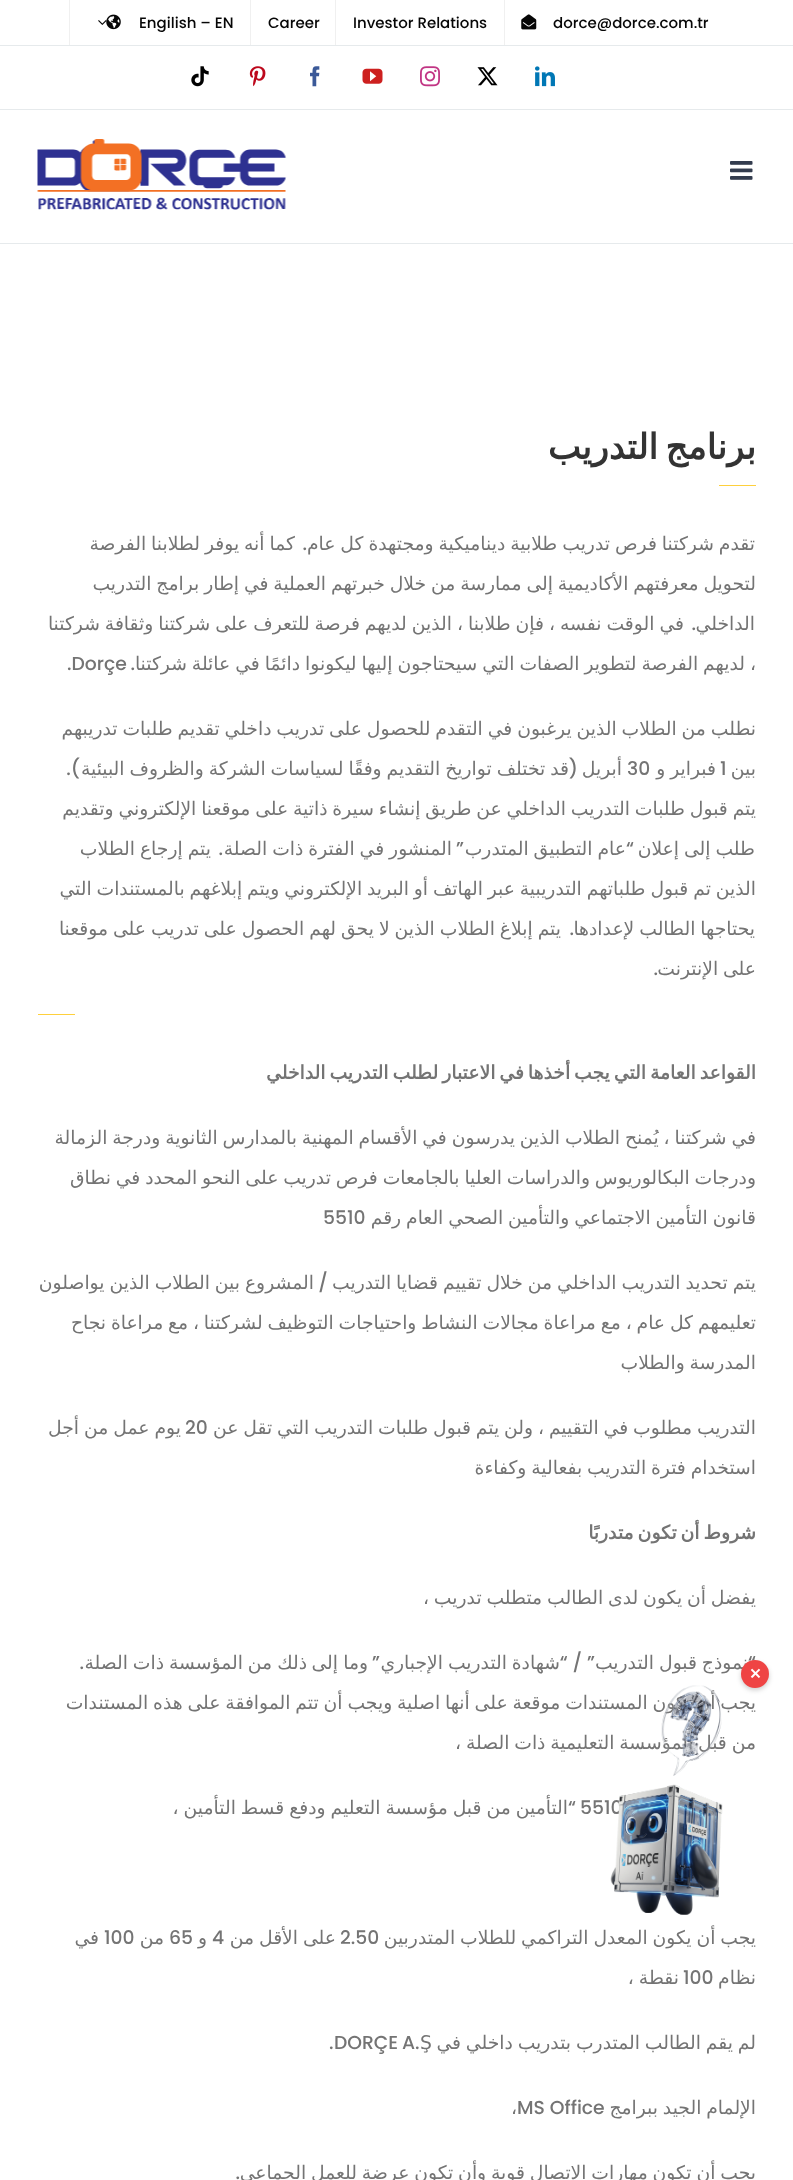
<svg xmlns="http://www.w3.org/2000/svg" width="793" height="2180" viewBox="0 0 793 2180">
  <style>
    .t1 { font: 500 15px Poppins; fill: #060606; }
    .t2 { font: bold 35px DejaVu Sans; direction: rtl; fill: #333; }
    .t3 { font: 18.75px DejaVu Sans; direction: rtl; fill: #747474; }
    .t4 { font: 500 18.75px Poppins; direction: rtl; fill: #747474; }
    .t5 { font: 500 18.75px Poppins; fill: #747474; }
    .t6 { font: bold 18.75px DejaVu Sans; direction: rtl; fill: #747474; }
    .t7 { font: 18.75px DejaVu Sans; fill: #747474; }
    .t8 { font: bold 15px DejaVu Sans; fill: #fff; }
  </style>
  <rect width="100%" height="100%" fill="#fff"/>
  <rect x="0" y="109" width="793" height="1" fill="#e6eaec"/>
  <rect x="0" y="45" width="793" height="1" fill="#e6eaec"/>
  <rect x="504" y="0" width="1" height="45" fill="#f0f0f0"/>
  <text x="553" y="28" class="t1">dorce@dorce.com.tr</text>
  <image x="521" y="14" width="16" height="16" href="images/1.png"/>
  <rect x="335" y="0" width="1" height="45" fill="#f0f0f0"/>
  <text x="353" y="28" class="t1">Investor Relations</text>
  <rect x="250" y="0" width="1" height="45" fill="#f0f0f0"/>
  <text x="268" y="28" class="t1">Career</text>
  <rect x="69" y="0" width="1" height="45" fill="#f0f0f0"/>
  <text x="139" y="28" class="t1">Engilish – EN</text>
  <image x="106" y="14" width="15" height="16" href="images/2.png"/>
  <image x="98" y="20" width="9" height="5" href="images/3.png"/>
  <image x="535" y="66" width="20" height="21" href="images/4.png"/>
  <image x="477" y="67" width="21" height="19" href="images/5.png"/>
  <image x="420" y="66" width="20" height="21" href="images/6.png"/>
  <image x="362" y="68" width="21" height="16" href="images/7.png"/>
  <image x="310" y="66" width="10" height="21" href="images/8.png"/>
  <image x="249" y="66" width="17" height="21" href="images/9.png"/>
  <image x="191" y="66" width="18" height="21" href="images/10.png"/>
  <rect x="0" y="243" width="793" height="1" fill="#e6eaec"/>
  <image x="730" y="161" width="23" height="19" href="images/11.png"/>
  <image x="37" y="139" width="250" height="71" href="images/12.png"/>
  <text x="756" y="459" word-spacing="-4" class="t2">برنامج التدريب</text>
  <rect x="719" y="485" width="37" height="1" fill="#fed03d"/>
  <text x="755" y="550" word-spacing="-1" class="t3">تقدم شركتنا فرص تدريب طلابية ديناميكية ومجتهدة كل عام</text>
  <text x="307" y="550" class="t4">.</text>
  <text x="295" y="550" word-spacing="-1" class="t3">كما أنه يوفر لطلابنا الفرصة</text>
  <text x="756" y="590" word-spacing="-1.1" class="t3">لتحويل معرفتهم الأكاديمية إلى ممارسة من خلال خبرتهم العملية في إطار برامج التدريب</text>
  <text x="755" y="630" class="t3">الداخلي</text>
  <text x="684" y="630" word-spacing="-1" class="t3">في الوقت نفسه ، فإن طلابنا ، الذين لديهم فرصة للتعرف على شركتنا وثقافة شركتنا</text>
  <text x="696" y="630" class="t4">.</text>
  <text x="756" y="670" word-spacing="-1" class="t3">، لديهم الفرصة لتطوير الصفات التي سيحتاجون إليها ليكونوا دائمًا في عائلة شركتنا</text>
  <text x="135" y="670" class="t4">.</text>
  <text x="67" y="670" class="t5">.Dorçe</text>
  <text x="756" y="735" word-spacing="-1.1" class="t3">نطلب من الطلاب الذين يرغبون في التقدم للحصول على تدريب داخلي تقديم طلبات تدريبهم</text>
  <text x="622" y="775" class="t3">أبريل</text>
  <text x="569" y="775" word-spacing="-1" class="t3">قد تختلف تواريخ التقديم وفقًا لسياسات الشركة والظروف البيئية</text>
  <text x="578" y="775" class="t4">(</text>
  <text x="80" y="775" class="t4">).</text>
  <text x="756" y="775" class="t3">بين</text>
  <text x="720" y="775" class="t5">1</text>
  <text x="716" y="775" word-spacing="-1" class="t3">فبراير و</text>
  <text x="627" y="775" class="t5">30</text>
  <text x="756" y="815" word-spacing="-1.1" class="t3">يتم قبول طلبات التدريب الداخلي عن طريق إنشاء سيرة ذاتية على موقعنا الإلكتروني وتقديم</text>
  <text x="755" y="855" word-spacing="-1" class="t3">طلب إلى إعلان</text>
  <text x="634" y="855" class="t4">“</text>
  <text x="626" y="855" word-spacing="-1" class="t3">عام التطبيق المتدرب</text>
  <text x="464" y="855" class="t4">”</text>
  <text x="452" y="855" word-spacing="-1" class="t3">المنشور في الفترة ذات الصلة</text>
  <text x="211" y="855" word-spacing="-1" class="t3">يتم إرجاع الطلاب</text>
  <text x="223" y="855" class="t4">.</text>
  <text x="756" y="895" word-spacing="-1.1" class="t3">الذين تم قبول طلباتهم التدريبية عبر الهاتف أو البريد الإلكتروني ويتم إبلاغهم بالمستندات التي</text>
  <text x="755" y="935" word-spacing="-1" class="t3">يحتاجها الطالب لإعدادها</text>
  <text x="574" y="935" class="t4">.</text>
  <text x="561" y="935" word-spacing="-1" class="t3">يتم إبلاغ الطلاب الذين لا يحق لهم الحصول على تدريب على موقعنا</text>
  <text x="756" y="975" word-spacing="-1.1" class="t3">على الإنترنت</text>
  <text x="658" y="975" class="t4">.</text>
  <rect x="38" y="1014" width="37" height="1" fill="#fed03d"/>
  <text x="756" y="1079" word-spacing="-2" class="t6">القواعد العامة التي يجب أخذها في الاعتبار لطلب التدريب الداخلي</text>
  <text x="756" y="1144" word-spacing="-1.1" class="t3">في شركتنا ، يُمنح الطلاب الذين يدرسون في الأقسام المهنية بالمدارس الثانوية ودرجة الزمالة</text>
  <text x="756" y="1184" word-spacing="-1.1" class="t3">ودرجات البكالوريوس والدراسات العليا بالجامعات فرص تدريب على النحو المحدد في نطاق</text>
  <text x="756" y="1224" word-spacing="-1.1" class="t3">قانون التأمين الاجتماعي والتأمين الصحي العام رقم</text>
  <text x="323" y="1224" class="t5">5510</text>
  <text x="756" y="1289" word-spacing="-1" class="t3">يتم تحديد التدريب الداخلي من خلال تقييم قضايا التدريب</text>
  <text x="328" y="1289" class="t4">/</text>
  <text x="314" y="1289" word-spacing="-1" class="t3">المشروع بين الطلاب الذين يواصلون</text>
  <text x="756" y="1329" word-spacing="-1.1" class="t3">تعليمهم كل عام ، مع مراعاة مجالات النشاط واحتياجات التوظيف لشركتنا ، مع مراعاة نجاح</text>
  <text x="756" y="1369" word-spacing="-1.1" class="t3">المدرسة والطلاب</text>
  <text x="756" y="1434" word-spacing="-1.1" class="t3">التدريب مطلوب في التقييم ، ولن يتم قبول طلبات التدريب التي تقل عن</text>
  <text x="185" y="1434" class="t5">20</text>
  <text x="181" y="1434" word-spacing="-1" class="t3">يوم عمل من أجل</text>
  <text x="756" y="1474" word-spacing="-1.1" class="t3">استخدام فترة التدريب بفعالية وكفاءة</text>
  <text x="756" y="1539" word-spacing="-2" class="t6">شروط أن تكون متدربًا</text>
  <text x="756" y="1604" word-spacing="-1.1" class="t3">يفضل أن يكون لدى الطالب متطلب تدريب ،</text>
  <text x="756" y="1669" class="t4">“</text>
  <text x="748" y="1669" class="t3">نموذج</text>
  <text x="697" y="1669" class="t3">قبول</text>
  <text x="654" y="1669" class="t3">التدريب</text>
  <text x="595" y="1669" class="t4">” / “</text>
  <text x="560" y="1669" class="t3">شهادة</text>
  <text x="507" y="1669" class="t3">التدريب</text>
  <text x="443" y="1669" class="t3">الإجباري</text>
  <text x="380" y="1669" class="t4">”</text>
  <text x="368" y="1669" class="t3">وما</text>
  <text x="338" y="1669" class="t3">إلى</text>
  <text x="307" y="1669" class="t3">ذلك</text>
  <text x="272" y="1669" class="t3">من</text>
  <text x="243" y="1669" class="t3">المؤسسة</text>
  <text x="164" y="1669" class="t3">ذات</text>
  <text x="128" y="1669" class="t3">الصلة</text>
  <text x="84" y="1669" class="t4">.</text>
  <text x="756" y="1709" word-spacing="-1.1" class="t3">يجب أن تكون المستندات موقعة على أنها اصلية ويجب أن تتم الموافقة على هذه المستندات</text>
  <text x="756" y="1749" word-spacing="-1.1" class="t3">من قبل المؤسسة التعليمية ذات الصلة ،</text>
  <text x="580" y="1814" class="t5">5510</text>
  <text x="568" y="1814" word-spacing="-1" class="t3">التأمين من قبل مؤسسة التعليم ودفع قسط التأمين ،</text>
  <text x="576" y="1814" class="t4">“</text>
  <text x="756" y="1944" word-spacing="-1.1" class="t3">يجب أن يكون المعدل التراكمي للطلاب المتدربين</text>
  <text x="340" y="1944" class="t5">2.50</text>
  <text x="336" y="1944" word-spacing="-1" class="t3">على الأقل من</text>
  <text x="212" y="1944" class="t5">4</text>
  <text x="207" y="1944" class="t3">و</text>
  <text x="169" y="1944" class="t5">65</text>
  <text x="164" y="1944" class="t3">من</text>
  <text x="104" y="1944" class="t5">100</text>
  <text x="99" y="1944" class="t3">في</text>
  <text x="756" y="1984" class="t3">نظام</text>
  <text x="683" y="1984" class="t5">100</text>
  <text x="679" y="1984" word-spacing="-1" class="t3">نقطة ،</text>
  <text x="756" y="2049" word-spacing="-1.1" class="t3">لم يقم الطالب المتدرب بتدريب داخلي في</text>
  <text x="420" y="2049" class="t7">Ş</text>
  <text x="334" y="2049" word-spacing="-1" class="t5">DORÇE A.</text>
  <text x="329" y="2049" class="t5">.</text>
  <text x="756" y="2114" word-spacing="-1.1" class="t3">الإلمام الجيد ببرامج</text>
  <text x="517" y="2114" class="t5">MS Office</text>
  <text x="511" y="2114" class="t7">،</text>
  <text x="756" y="2179" word-spacing="-1.1" class="t3">يجب أن تكون مهارات الاتصال قوية وأن تكون عرضة للعمل الجماعي</text>
  <text x="240" y="2179" class="t4">.</text>
  <rect x="741" y="1663" width="28" height="27" rx="13.5" fill="#00000033" filter="blur(2.5px)"/>
  <circle cx="755" cy="1674" r="14" fill="#ef4444"/>
  <text x="749" y="1679" class="t8">✕</text>
  <image x="610" y="1685" width="113" height="230" href="images/13.png"/>
</svg>
